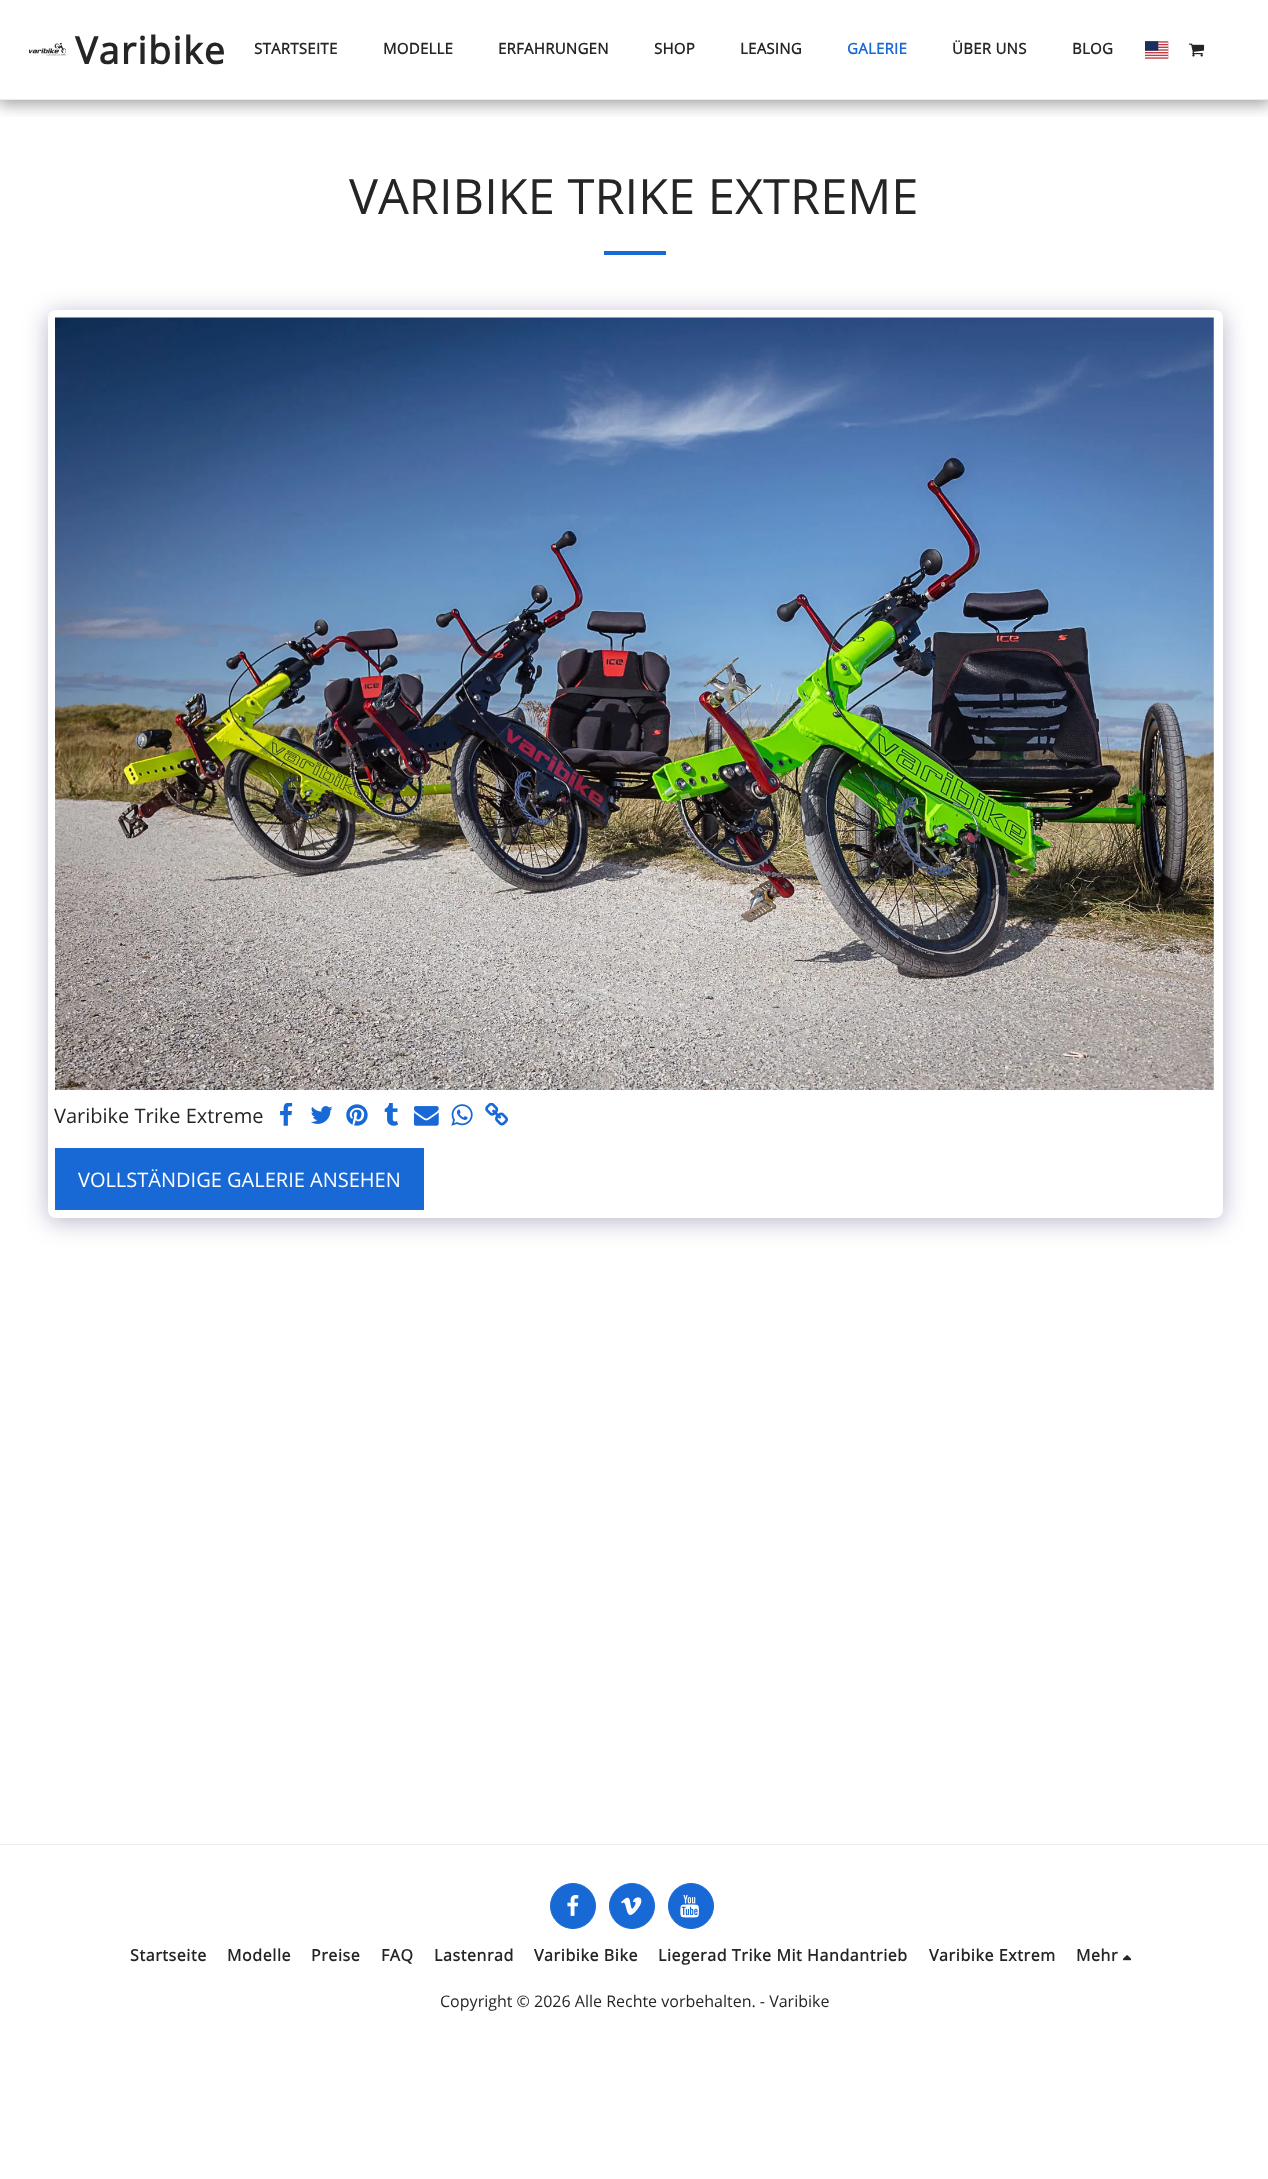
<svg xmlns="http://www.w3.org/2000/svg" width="1268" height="2179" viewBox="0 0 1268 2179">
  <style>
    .t1 { font: bold 37.5px Open Sans; letter-spacing: 1.25px; fill: #252525; }
    .t2 { font: bold 15px Open Sans; letter-spacing: 0.25px; fill: #252525; }
    .t3 { font: bold 15px Open Sans; letter-spacing: 0.25px; fill: #1869d6; }
    .t4 { font: 48.75px Open Sans; fill: #252525; }
    .t5 { font: 20px Open Sans; fill: #252525; }
    .t6 { font: 20px Open Sans; fill: #fff; }
    .t7 { font: bold 16px Open Sans; letter-spacing: 0.6px; fill: #252525; }
    .t8 { font: 16px Open Sans; fill: #252525; }
  </style>
  <defs>
    <clipPath id="clip1"><rect x="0" y="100" width="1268" height="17"/></clipPath>
  </defs>
  <rect width="100%" height="100%" fill="#fff"/>
  <g clip-path="url(#clip1)">
    <rect x="-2" y="0" width="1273" height="105" fill="#00000059" filter="blur(7.5px)"/>
  </g>
  <rect x="0" y="99" width="1268" height="1" fill="#ebebeb"/>
  <image x="29" y="43" width="37" height="13" href="images/1.png"/>
  <text x="75" y="64" class="t1">Varibike</text>
  <text x="254" y="54" class="t2">STARTSEITE</text>
  <text x="383" y="54" class="t2">MODELLE</text>
  <text x="498" y="54" class="t2">ERFAHRUNGEN</text>
  <text x="654" y="54" class="t2">SHOP</text>
  <text x="740" y="54" class="t2">LEASING</text>
  <text x="847" y="54" class="t3">GALERIE</text>
  <text x="952" y="54" class="t2">ÜBER UNS</text>
  <text x="1072" y="54" class="t2">BLOG</text>
  <image x="1145" y="41" width="24" height="18" href="images/2.png"/>
  <image x="1189" y="43" width="16" height="14" href="images/3.png"/>
  <text x="349" y="214" class="t4">VARIBIKE TRIKE EXTREME</text>
  <rect x="604" y="251" width="62" height="4" fill="#1869d6"/>
  <rect x="48" y="314" width="1175" height="907" rx="8" fill="#4d3f7a66" filter="blur(12.5px)"/>
  <rect x="48" y="310" width="1175" height="908" rx="8" fill="#fff"/>
  <image x="55" y="317" width="1159" height="773" href="images/4.png"/>
  <text x="54" y="1123" class="t5">Varibike Trike Extreme</text>
  <image x="280" y="1103" width="13" height="23" href="images/5.png"/>
  <image x="311" y="1106" width="22" height="18" href="images/6.png"/>
  <image x="346" y="1104" width="22" height="22" href="images/7.png"/>
  <image x="384" y="1103" width="14" height="23" href="images/8.png"/>
  <image x="414" y="1106" width="25" height="20" href="images/9.png"/>
  <image x="451" y="1104" width="22" height="22" href="images/10.png"/>
  <image x="485" y="1103" width="23" height="23" href="images/11.png"/>
  <rect x="55" y="1148" width="369" height="62" fill="#1869d6"/>
  <text x="78" y="1187" class="t6">VOLLSTÄNDIGE GALERIE ANSEHEN</text>
  <rect x="0" y="1844" width="1268" height="1" fill="#ebebeb"/>
  <circle cx="573" cy="1906" r="22.5" fill="#1869d6" stroke="#1869d6"/>
  <image x="567" y="1895" width="12" height="21" href="images/12.png"/>
  <circle cx="632" cy="1906" r="22.5" fill="#1869d6" stroke="#1869d6"/>
  <image x="621" y="1897" width="21" height="18" href="images/13.png"/>
  <circle cx="691" cy="1906" r="22.5" fill="#1869d6" stroke="#1869d6"/>
  <image x="680" y="1895" width="19" height="23" href="images/14.png"/>
  <text x="130" y="1961" class="t7">Startseite</text>
  <text x="227" y="1961" class="t7">Modelle</text>
  <text x="311" y="1961" class="t7">Preise</text>
  <text x="381" y="1961" class="t7">FAQ</text>
  <text x="434" y="1961" class="t7">Lastenrad</text>
  <text x="534" y="1961" class="t7">Varibike Bike</text>
  <text x="658" y="1961" class="t7">Liegerad Trike Mit Handantrieb</text>
  <text x="929" y="1961" class="t7">Varibike Extrem</text>
  <text x="1076" y="1961" class="t7">Mehr</text>
  <image x="1123" y="1955" width="8" height="6" href="images/15.png"/>
  <text x="440" y="2007" class="t8">Copyright © 2026 Alle Rechte vorbehalten. - Varibike</text>
</svg>
